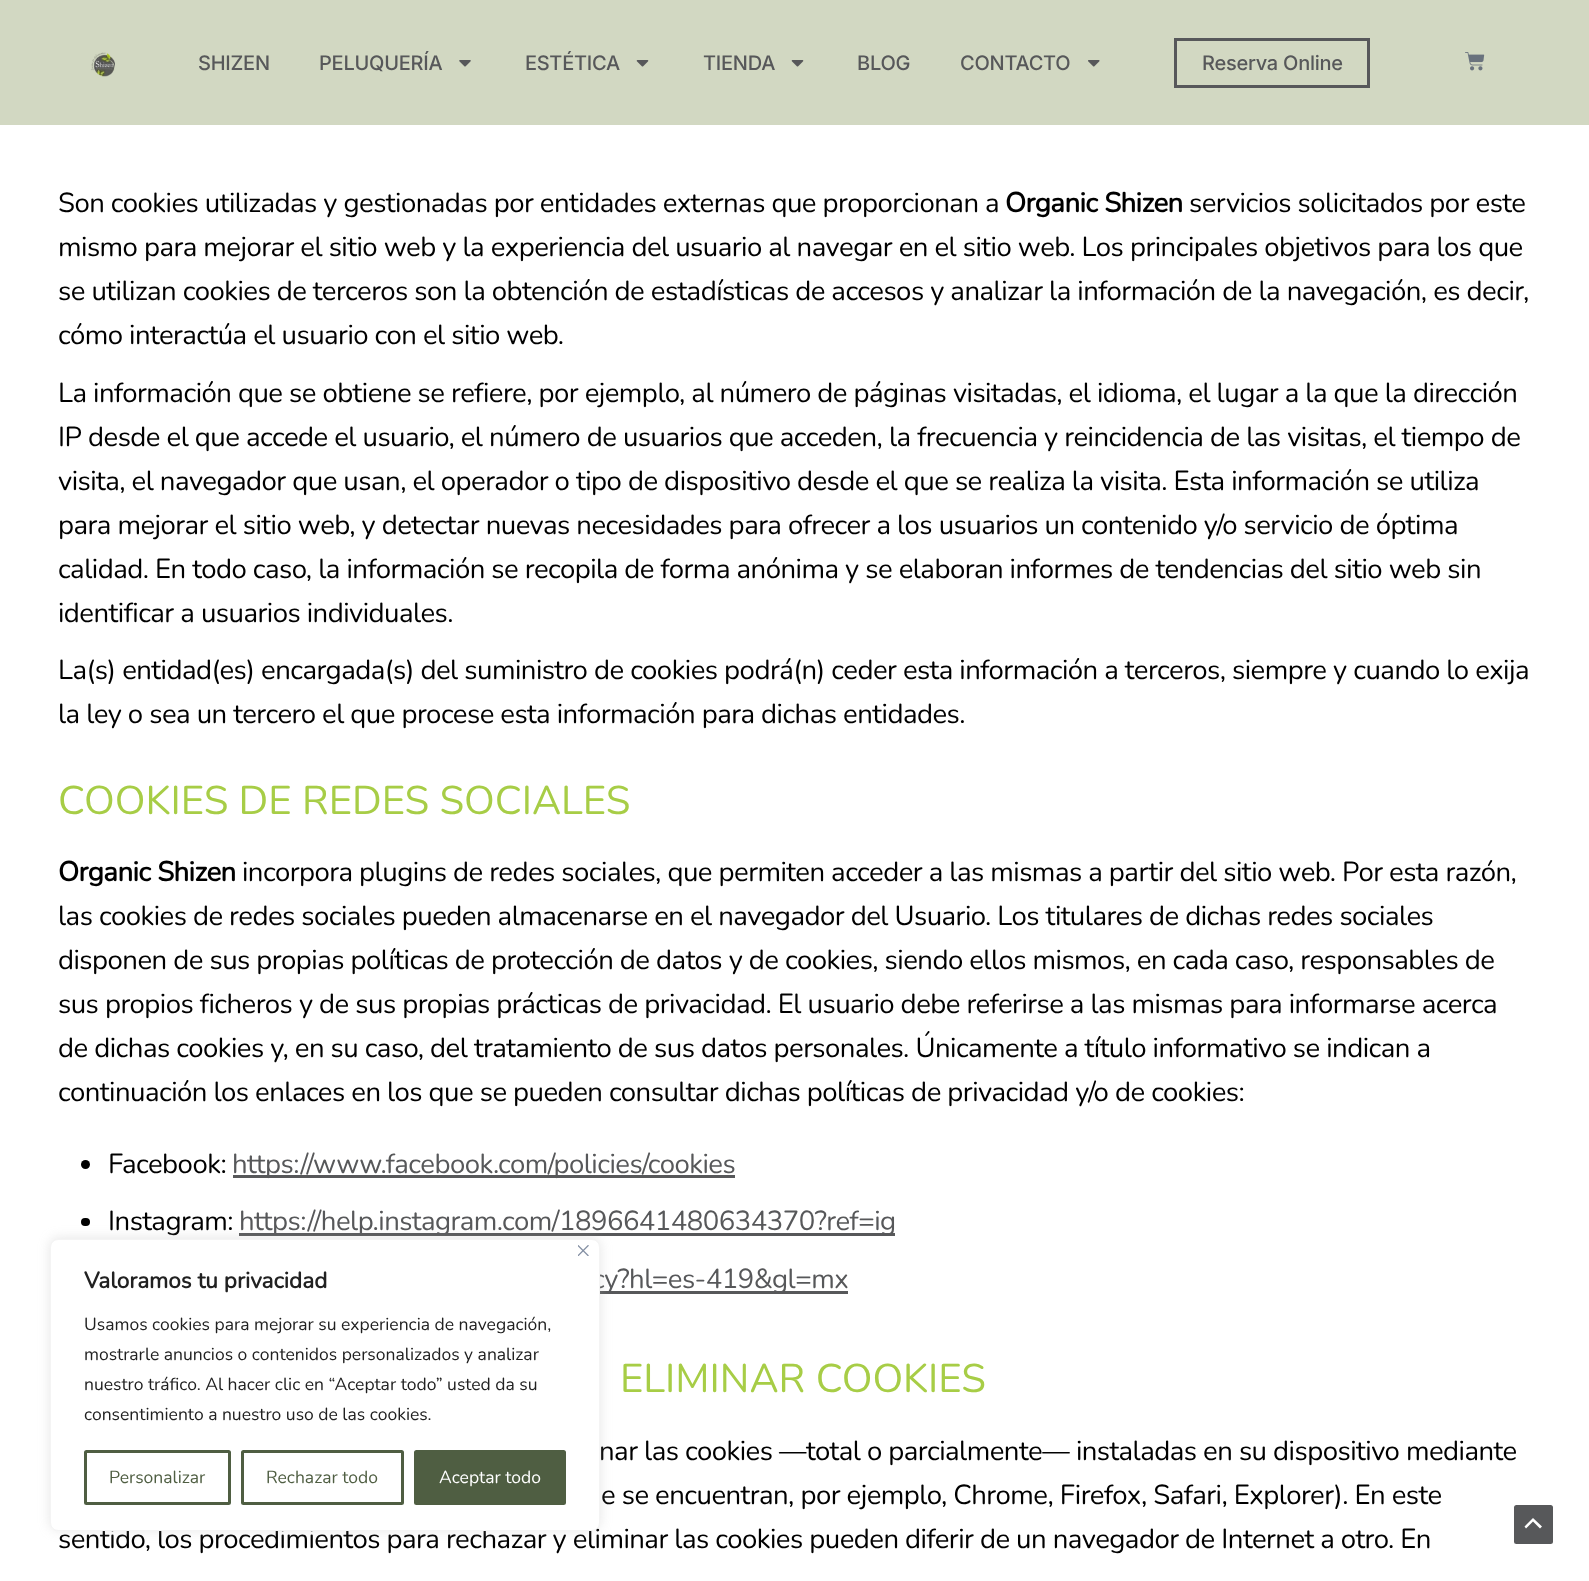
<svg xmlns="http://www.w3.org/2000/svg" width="1589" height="1581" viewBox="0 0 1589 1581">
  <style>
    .t1 { font: 500 20px Inter; letter-spacing: -0.25px; fill: #57585a; }
    .t2 { font: 200 27.5px Nunito; letter-spacing: -0.52px; fill: #000; }
    .t3 { font: bold 27.5px Nunito; letter-spacing: -0.52px; fill: #000; }
    .t4 { font: 200 40px Nunito; fill: #a7cd46; }
    .t5 { font: 200 27.5px Nunito; letter-spacing: -0.52px; fill: #57585a; }
    .t6 { font: bold 22.5px Nunito; fill: #212121; }
    .t7 { font: 200 17.5px Nunito; fill: #212121; }
    .t8 { font: 200 17.5px Nunito; fill: #4f5e42; }
    .t9 { font: 200 17.5px Nunito; fill: #fff; }
  </style>
  <rect width="100%" height="100%" fill="#fff"/>
  <rect x="0" y="0" width="1589" height="125" fill="#d2d8c2"/>
  <image x="91" y="52" width="24" height="25" href="images/1.png"/>
  <text x="198" y="70" class="t1">SHIZEN</text>
  <text x="319" y="70" class="t1">PELUQUERÍA</text>
  <image x="459" y="60" width="12" height="7" href="images/2.png"/>
  <text x="525" y="70" class="t1">ESTÉTICA</text>
  <image x="636" y="60" width="13" height="7" href="images/3.png"/>
  <text x="703" y="70" class="t1">TIENDA</text>
  <image x="791" y="60" width="13" height="7" href="images/3.png"/>
  <text x="857" y="70" class="t1">BLOG</text>
  <text x="960" y="70" class="t1">CONTACTO</text>
  <image x="1088" y="60" width="12" height="7" href="images/4.png"/>
  <rect x="1175.5" y="39.5" width="193" height="47" fill="none" stroke="#57585a" stroke-width="3"/>
  <text x="1202" y="70" class="t1">Reserva Online</text>
  <image x="1465" y="52" width="20" height="19" href="images/5.png"/>
  <text x="58" y="212" class="t2">Son cookies utilizadas y gestionadas por entidades externas que proporcionan a</text>
  <text x="1005" y="212" class="t3">Organic Shizen</text>
  <text x="1189" y="212" class="t2">servicios solicitados por este</text>
  <text x="58" y="256" class="t2">mismo para mejorar el sitio web y la experiencia del usuario al navegar en el sitio web. Los principales objetivos para los que</text>
  <text x="58" y="300" class="t2">se utilizan cookies de terceros son la obtención de estadísticas de accesos y analizar la información de la navegación, es decir,</text>
  <text x="58" y="344" class="t2">cómo interactúa el usuario con el sitio web.</text>
  <text x="58" y="402" class="t2">La información que se obtiene se refiere, por ejemplo, al número de páginas visitadas, el idioma, el lugar a la que la dirección</text>
  <text x="58" y="446" class="t2">IP desde el que accede el usuario, el número de usuarios que acceden, la frecuencia y reincidencia de las visitas, el tiempo de</text>
  <text x="58" y="490" class="t2">visita, el navegador que usan, el operador o tipo de dispositivo desde el que se realiza la visita. Esta información se utiliza</text>
  <text x="58" y="534" class="t2">para mejorar el sitio web, y detectar nuevas necesidades para ofrecer a los usuarios un contenido y/o servicio de óptima</text>
  <text x="58" y="578" class="t2">calidad. En todo caso, la información se recopila de forma anónima y se elaboran informes de tendencias del sitio web sin</text>
  <text x="58" y="622" class="t2">identificar a usuarios individuales.</text>
  <text x="58" y="679" class="t2">La(s) entidad(es) encargada(s) del suministro de cookies podrá(n) ceder esta información a terceros, siempre y cuando lo exija</text>
  <text x="58" y="723" class="t2">la ley o sea un tercero el que procese esta información para dichas entidades.</text>
  <text x="58" y="814" class="t4">COOKIES DE REDES SOCIALES</text>
  <text x="58" y="881" class="t3">Organic Shizen</text>
  <text x="242" y="881" class="t2">incorpora plugins de redes sociales, que permiten acceder a las mismas a partir del sitio web. Por esta razón,</text>
  <text x="58" y="925" class="t2">las cookies de redes sociales pueden almacenarse en el navegador del Usuario. Los titulares de dichas redes sociales</text>
  <text x="58" y="969" class="t2">disponen de sus propias políticas de protección de datos y de cookies, siendo ellos mismos, en cada caso, responsables de</text>
  <text x="58" y="1013" class="t2">sus propios ficheros y de sus propias prácticas de privacidad. El usuario debe referirse a las mismas para informarse acerca</text>
  <text x="58" y="1057" class="t2">de dichas cookies y, en su caso, del tratamiento de sus datos personales. Únicamente a título informativo se indican a</text>
  <text x="58" y="1101" class="t2">continuación los enlaces en los que se pueden consultar dichas políticas de privacidad y/o de cookies:</text>
  <circle cx="85.5" cy="1164.5" r="4.5" fill="#000"/>
  <text x="108" y="1173" class="t2">Facebook:</text>
  <rect x="233" y="1175" width="502" height="3" fill="#57585a"/>
  <text x="232" y="1173" class="t5">https://www.facebook.com/policies/cookies</text>
  <rect x="81" y="1218" width="9" height="8" rx="4" fill="#000"/>
  <text x="108" y="1230" class="t2">Instagram:</text>
  <rect x="239" y="1233" width="656" height="3" fill="#57585a"/>
  <text x="239" y="1230" class="t5">https://help.instagram.com/1896641480634370?ref=ig</text>
  <rect x="600" y="1291" width="248" height="3" fill="#57585a"/>
  <text x="592" y="1288" class="t5">cy?hl=es-419&amp;gl=mx</text>
  <text x="620" y="1392" class="t4">ELIMINAR COOKIES</text>
  <text x="599" y="1460" class="t2">nar las cookies —total o parcialmente— instaladas en su dispositivo mediante</text>
  <text x="601" y="1504" class="t2">e se encuentran, por ejemplo, Chrome, Firefox, Safari, Explorer). En este</text>
  <text x="58" y="1548" class="t2">sentido, los procedimientos para rechazar y eliminar las cookies pueden diferir de un navegador de Internet a otro. En</text>
  <rect x="50" y="1238" width="550" height="292" rx="8" fill="#acabab4d" filter="blur(6px)"/>
  <rect x="50.5" y="1239.5" width="549" height="291" rx="7.5" fill="#fff" stroke="#f4f4f4"/>
  <image x="578" y="1245" width="11" height="11" href="images/6.png"/>
  <text x="84" y="1288" class="t6">Valoramos tu privacidad</text>
  <text x="84" y="1330" class="t7">Usamos cookies para mejorar su experiencia de navegación,</text>
  <text x="84" y="1360" class="t7">mostrarle anuncios o contenidos personalizados y analizar</text>
  <text x="84" y="1390" class="t7">nuestro tráfico. Al hacer clic en “Aceptar todo” usted da su</text>
  <text x="84" y="1420" class="t7">consentimiento a nuestro uso de las cookies.</text>
  <rect x="85.5" y="1451.5" width="144" height="52" rx="1" fill="none" stroke="#4f5e42" stroke-width="3"/>
  <text x="109" y="1483" class="t8">Personalizar</text>
  <rect x="242.5" y="1451.5" width="160" height="52" rx="1" fill="none" stroke="#4f5e42" stroke-width="3"/>
  <text x="266" y="1483" class="t8">Rechazar todo</text>
  <rect x="415.5" y="1451.5" width="149" height="52" rx="1" fill="#4f5e42" stroke="#4f5e42" stroke-width="3"/>
  <text x="439" y="1483" class="t9">Aceptar todo</text>
  <rect x="1514" y="1505" width="39" height="39" rx="2.5" fill="#57585a"/>
  <path d="M1542 1526.5L1533 1518L1524.5 1526.5L1526 1528.5L1533 1521.5L1540 1528.5Z" fill="#fff"/>
</svg>
